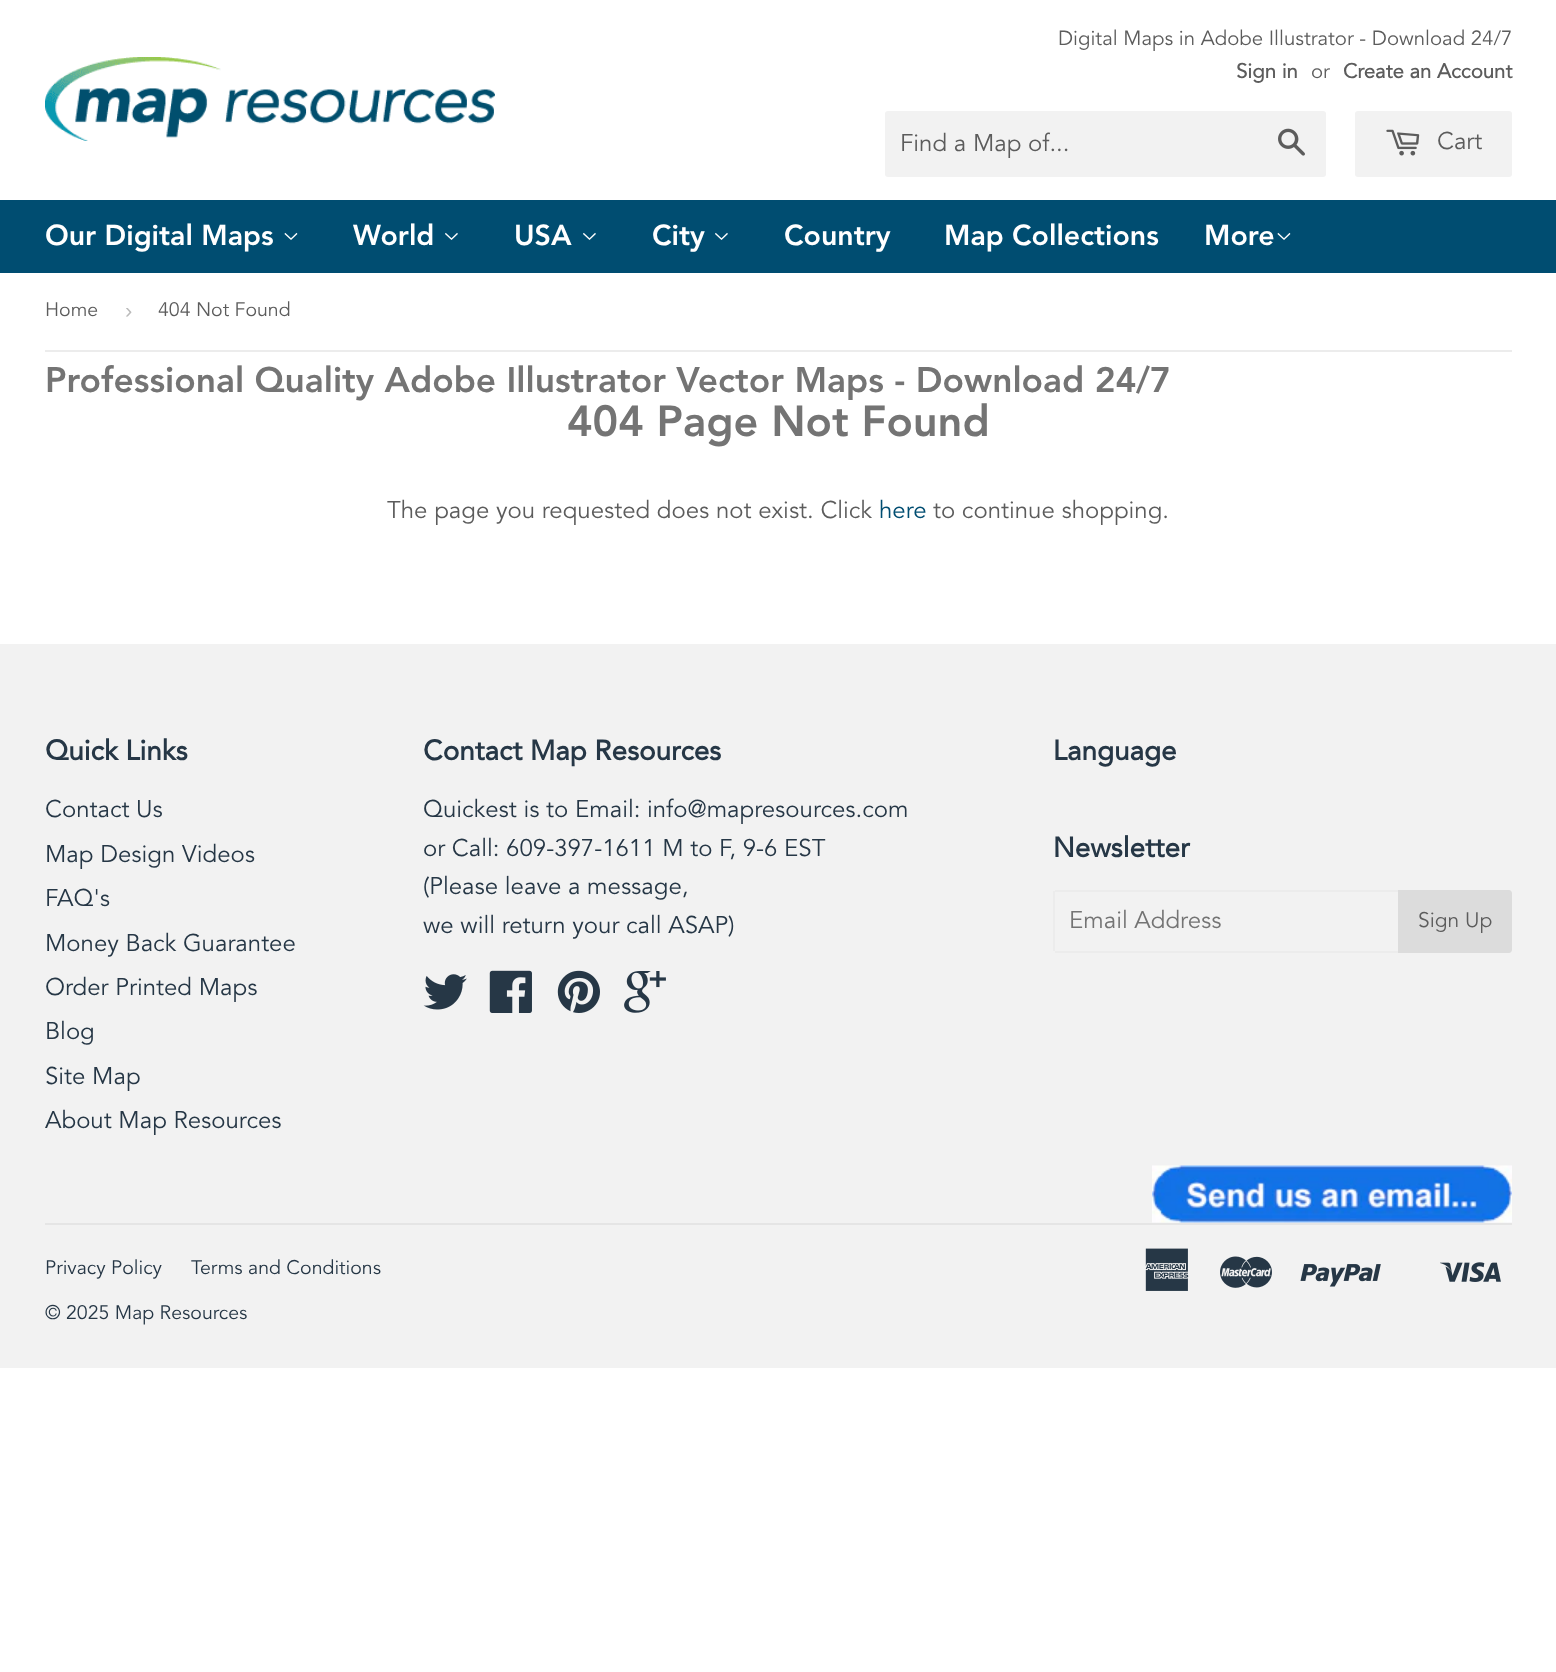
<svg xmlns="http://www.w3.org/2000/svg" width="1556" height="1672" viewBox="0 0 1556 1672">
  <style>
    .t1 { font: 20.4px 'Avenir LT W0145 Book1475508'; fill: #5c5c5c; }
    .t2 { font: bold 20.4px 'Avenir LT W0145 Book1475508'; fill: #5c5c5c; }
    .t3 { font: 24px 'Avenir LT W0145 Book1475508'; fill: #5c5c5c; }
    .t4 { font: 900 28.5px 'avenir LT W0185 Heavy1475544'; fill: #fff; }
    .t5 { font: 19.5px 'Avenir LT W0145 Book1475508'; fill: #5c5c5c; }
    .t6 { font: 22px Liberation Sans; fill: #bbb; }
    .t7 { font: 900 35.25px 'avenir LT W0185 Heavy1475544'; fill: #747474; }
    .t8 { font: 900 43.25px 'avenir LT W0185 Heavy1475544'; fill: #747474; }
    .t9 { font: 24px 'Avenir LT W0145 Book1475508'; fill: #004d71; }
    .t10 { font: bold 27.9px 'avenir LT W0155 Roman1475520'; fill: #263746; }
    .t11 { font: 24px 'Avenir LT W0145 Book1475508'; fill: #263746; }
    .t12 { font: 24px 'Avenir LT W0145 Book1475508'; fill: #747474; }
    .t13 { font: 21px 'Avenir LT W0145 Book1475508'; fill: #5c5c5c; }
    .t14 { font: 19.5px 'Avenir LT W0145 Book1475508'; fill: #263746; }
  </style>
  <rect width="100%" height="100%" fill="#fff"/>
  <image x="45" y="57" width="450" height="84" href="images/1.png"/>
  <text x="1058" y="45" class="t1">Digital Maps in Adobe Illustrator - Download 24/7</text>
  <text x="1236" y="78" class="t2">Sign in</text>
  <text x="1311" y="78" class="t1">or</text>
  <text x="1343" y="78" class="t2">Create an Account</text>
  <rect x="885" y="111" width="441" height="66" rx="3" fill="#f2f2f2"/>
  <text x="900" y="151" class="t3">Find a Map of...</text>
  <image x="1278" y="128" width="27" height="28" href="images/2.png"/>
  <rect x="1355" y="111" width="157" height="66" rx="3" fill="#f2f2f2"/>
  <image x="1386" y="129" width="34" height="27" href="images/3.png"/>
  <text x="1437" y="149" class="t3">Cart</text>
  <rect x="0" y="200" width="1556" height="73" fill="#004d71"/>
  <text x="45" y="245" class="t4">Our Digital Maps</text>
  <image x="284" y="232" width="14" height="8" href="images/4.png"/>
  <text x="353" y="245" class="t4">World</text>
  <image x="445" y="232" width="13" height="8" href="images/5.png"/>
  <text x="514" y="245" class="t4">USA</text>
  <image x="583" y="232" width="13" height="8" href="images/5.png"/>
  <text x="652" y="245" class="t4">City</text>
  <image x="715" y="232" width="13" height="8" href="images/5.png"/>
  <text x="784" y="245" class="t4">Country</text>
  <text x="944" y="245" class="t4">Map Collections</text>
  <text x="1204" y="245" class="t4">More</text>
  <image x="1277" y="232" width="14" height="8" href="images/4.png"/>
  <rect x="45" y="350" width="1467" height="2" fill="#ececec"/>
  <text x="45" y="316" class="t5">Home</text>
  <text x="125" y="318" class="t6">›</text>
  <text x="158" y="316" class="t5">404 Not Found</text>
  <text x="45" y="392" class="t7">Professional Quality Adobe Illustrator Vector Maps - Download 24/7</text>
  <text x="567" y="436" class="t8">404 Page Not Found</text>
  <text x="387" y="518" class="t3">The page you requested does not exist. Click</text>
  <text x="879" y="518" class="t9">here</text>
  <text x="933" y="518" class="t3">to continue shopping.</text>
  <rect x="0" y="644" width="1556" height="724" fill="#f2f2f2"/>
  <text x="45" y="760" class="t10">Quick Links</text>
  <text x="45" y="817" class="t11">Contact Us</text>
  <text x="45" y="862" class="t11">Map Design Videos</text>
  <text x="45" y="906" class="t11">FAQ's</text>
  <text x="45" y="951" class="t11">Money Back Guarantee</text>
  <text x="45" y="995" class="t11">Order Printed Maps</text>
  <text x="45" y="1039" class="t11">Blog</text>
  <text x="45" y="1084" class="t11">Site Map</text>
  <text x="45" y="1128" class="t11">About Map Resources</text>
  <text x="423" y="760" class="t10">Contact Map Resources</text>
  <text x="423" y="817" class="t11">Quickest is to Email: info@mapresources.com</text>
  <text x="423" y="856" class="t11">or Call: 609-397-1611 M to F, 9-6 EST</text>
  <text x="423" y="894" class="t11">(Please leave a message,</text>
  <text x="423" y="933" class="t11">we will return your call ASAP)</text>
  <image x="423" y="974" width="44" height="36" href="images/6.png"/>
  <image x="489" y="970" width="43" height="43" href="images/7.png"/>
  <image x="557" y="970" width="43" height="43" href="images/8.png"/>
  <image x="624" y="971" width="42" height="42" href="images/9.png"/>
  <text x="1053" y="760" class="t10">Language</text>
  <text x="1053" y="857" class="t10">Newsletter</text>
  <rect x="1055" y="890" width="343" height="2" fill="#ececec"/>
  <rect x="1055" y="951" width="343" height="2" fill="#ececec"/>
  <rect x="1053" y="891" width="2" height="60" fill="#ececec"/>
  <text x="1069" y="928" class="t12">Email Address</text>
  <path d="M1398 890H1509C1510.5 890 1512 891.5 1512 893V950C1512 951.5 1510.5 953 1509 953H1398Z" fill="#dcdcdc"/>
  <text x="1418" y="927" class="t13">Sign Up</text>
  <image x="1152" y="1165" width="360" height="58" href="images/10.png"/>
  <rect x="45" y="1223" width="1467" height="2" fill="#e5e5e5"/>
  <text x="45" y="1274" class="t14">Privacy Policy</text>
  <text x="191" y="1274" class="t14">Terms and Conditions</text>
  <text x="45" y="1319" class="t14">© 2025 Map Resources</text>
  <image x="1145" y="1248" width="44" height="43" href="images/11.png"/>
  <image x="1220" y="1256" width="52" height="32" href="images/12.png"/>
  <image x="1300" y="1264" width="81" height="23" href="images/13.png"/>
  <image x="1440" y="1262" width="61" height="20" href="images/14.png"/>
</svg>
